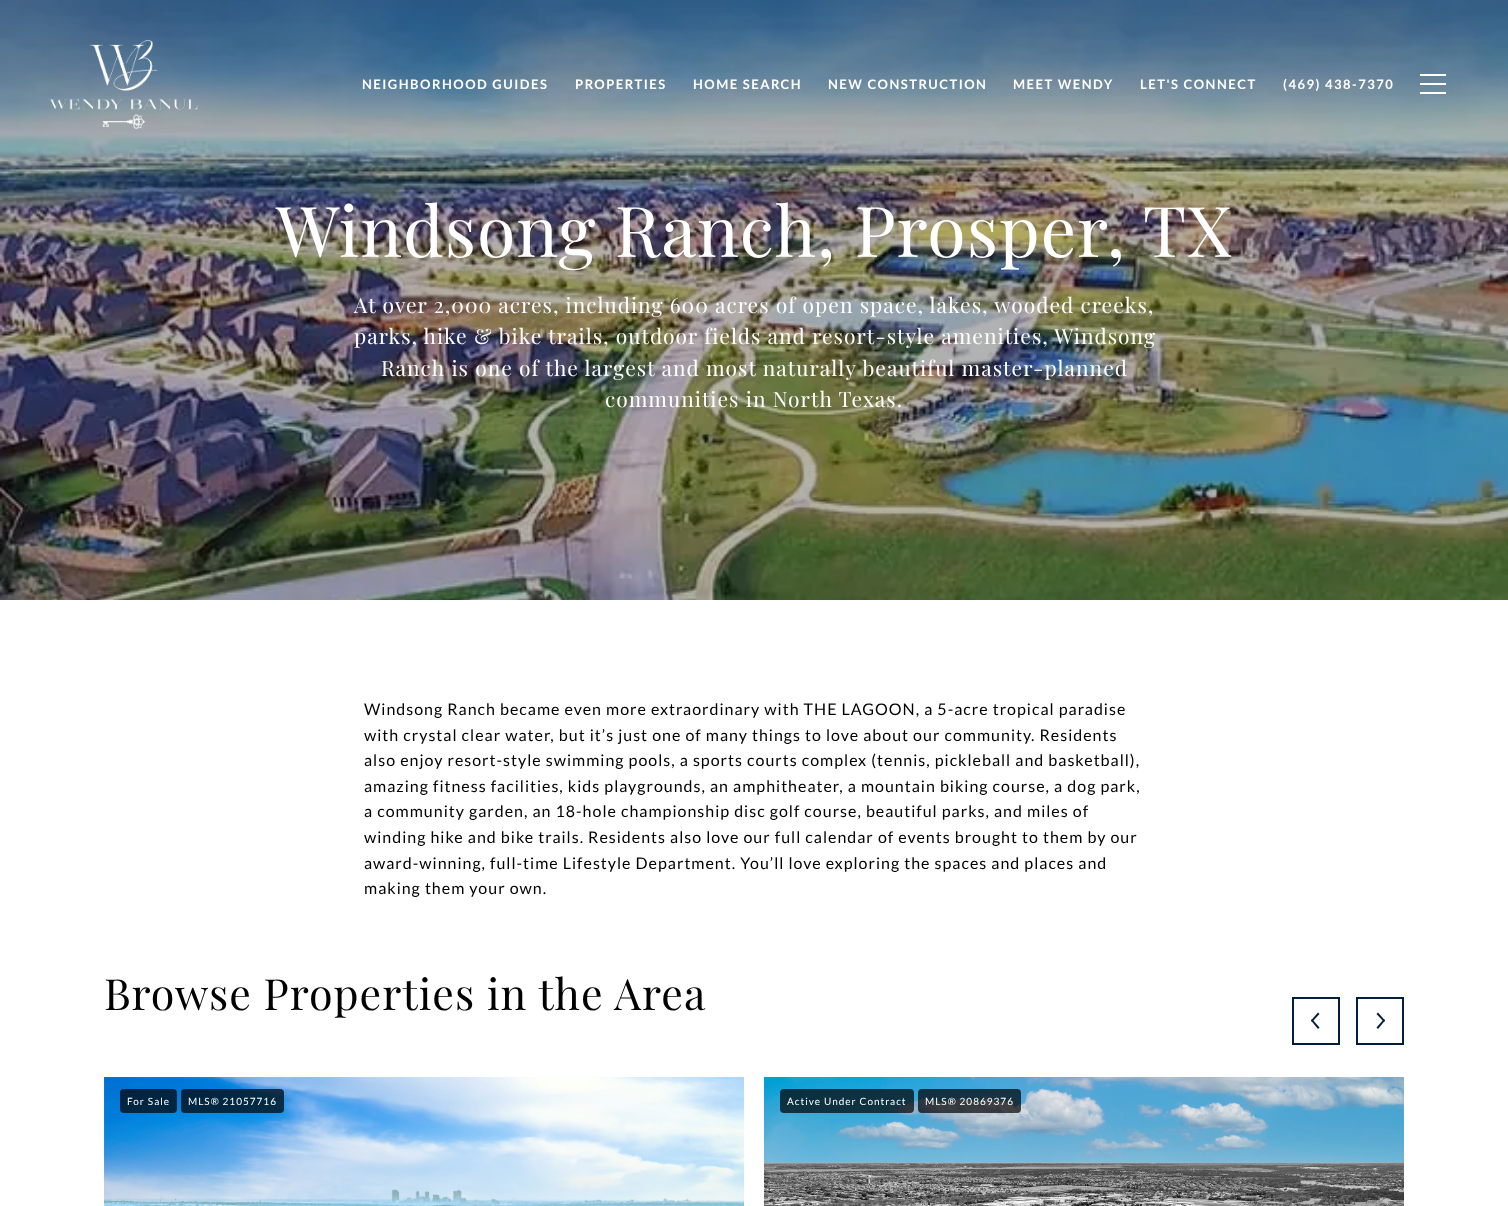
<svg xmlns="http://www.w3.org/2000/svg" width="1508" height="1206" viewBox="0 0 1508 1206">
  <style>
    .t1 { font: bold 13px Lato; letter-spacing: 1.5px; fill: #fff; }
    .t2 { font: 70px Playfair Display; letter-spacing: 1px; fill: #fff; }
    .t3 { font: 21px Playfair Display; letter-spacing: 1px; fill: #fff; }
    .t4 { font: 16px Lato; letter-spacing: 1px; fill: #000; }
    .t5 { font: 43px Playfair Display; letter-spacing: 1px; fill: #000; }
    .t6 { font: 10px Lato; letter-spacing: 1px; fill: #fff; }
  </style>
  <rect width="100%" height="100%" fill="#fff"/>
  <image x="0" y="0" width="1508" height="600" href="images/2.png"/>
  <image x="49" y="40" width="149" height="89" href="images/1.png"/>
  <text x="362" y="89" class="t1">NEIGHBORHOOD GUIDES</text>
  <text x="575" y="89" class="t1">PROPERTIES</text>
  <text x="693" y="89" class="t1">HOME SEARCH</text>
  <text x="828" y="89" class="t1">NEW CONSTRUCTION</text>
  <text x="1013" y="89" class="t1">MEET WENDY</text>
  <text x="1140" y="89" class="t1">LET'S CONNECT</text>
  <text x="1283" y="89" class="t1">(469) 438-7370</text>
  <rect x="1420" y="83" width="26" height="2" fill="#fff"/>
  <rect x="1420" y="74" width="26" height="2" fill="#fff"/>
  <rect x="1420" y="92" width="26" height="2" fill="#fff"/>
  <text x="276" y="257" class="t2">Windsong Ranch, Prosper, TX</text>
  <text x="354" y="313" class="t3">At over 2,000 acres, including 600 acres of open space, lakes, wooded creeks,</text>
  <text x="354" y="344" class="t3">parks, hike &amp; bike trails, outdoor fields and resort-style amenities, Windsong</text>
  <text x="381" y="376" class="t3">Ranch is one of the largest and most naturally beautiful master-planned</text>
  <text x="605" y="407" class="t3">communities in North Texas.</text>
  <text x="364" y="715" class="t4">Windsong Ranch became even more extraordinary with THE LAGOON, a 5-acre tropical paradise</text>
  <text x="364" y="741" class="t4">with crystal clear water, but it’s just one of many things to love about our community. Residents</text>
  <text x="364" y="766" class="t4">also enjoy resort-style swimming pools, a sports courts complex (tennis, pickleball and basketball),</text>
  <text x="364" y="792" class="t4">amazing fitness facilities, kids playgrounds, an amphitheater, a mountain biking course, a dog park,</text>
  <text x="364" y="817" class="t4">a community garden, an 18-hole championship disc golf course, beautiful parks, and miles of</text>
  <text x="364" y="843" class="t4">winding hike and bike trails. Residents also love our full calendar of events brought to them by our</text>
  <text x="364" y="869" class="t4">award-winning, full-time Lifestyle Department. You’ll love exploring the spaces and places and</text>
  <text x="364" y="894" class="t4">making them your own.</text>
  <text x="104" y="1010" class="t5">Browse Properties in the Area</text>
  <rect x="1293" y="998" width="46" height="46" fill="none" stroke="#011e3e" stroke-width="2"/>
  <path d="M1312 1019L1319.5 1027.5L1318 1029L1311 1020.5Z" fill="#011e3e"/>
  <path d="M1318 1012.5L1319.5 1014L1312 1022L1311 1020.5Z" fill="#011e3e"/>
  <rect x="1357" y="998" width="46" height="46" fill="none" stroke="#011e3e" stroke-width="2"/>
  <path d="M1384 1022L1376.5 1014L1378 1012.5L1385 1020.5Z" fill="#011e3e"/>
  <path d="M1378 1029L1376.5 1027.5L1384 1019L1385 1020.5Z" fill="#011e3e"/>
  <image x="104" y="1077" width="640" height="129" href="images/3.png"/>
  <rect x="120" y="1089" width="57" height="24" rx="4" fill="#000000b3"/>
  <text x="127" y="1105" class="t6">For Sale</text>
  <rect x="181" y="1089" width="103" height="24" rx="4" fill="#000000b3"/>
  <text x="188" y="1105" class="t6">MLS® 21057716</text>
  <image x="764" y="1077" width="640" height="129" href="images/4.png"/>
  <rect x="780" y="1089" width="134" height="24" rx="4" fill="#000000b3"/>
  <text x="787" y="1105" class="t6">Active Under Contract</text>
  <rect x="918" y="1089" width="103" height="24" rx="4" fill="#000000b3"/>
  <text x="925" y="1105" class="t6">MLS® 20869376</text>
</svg>
